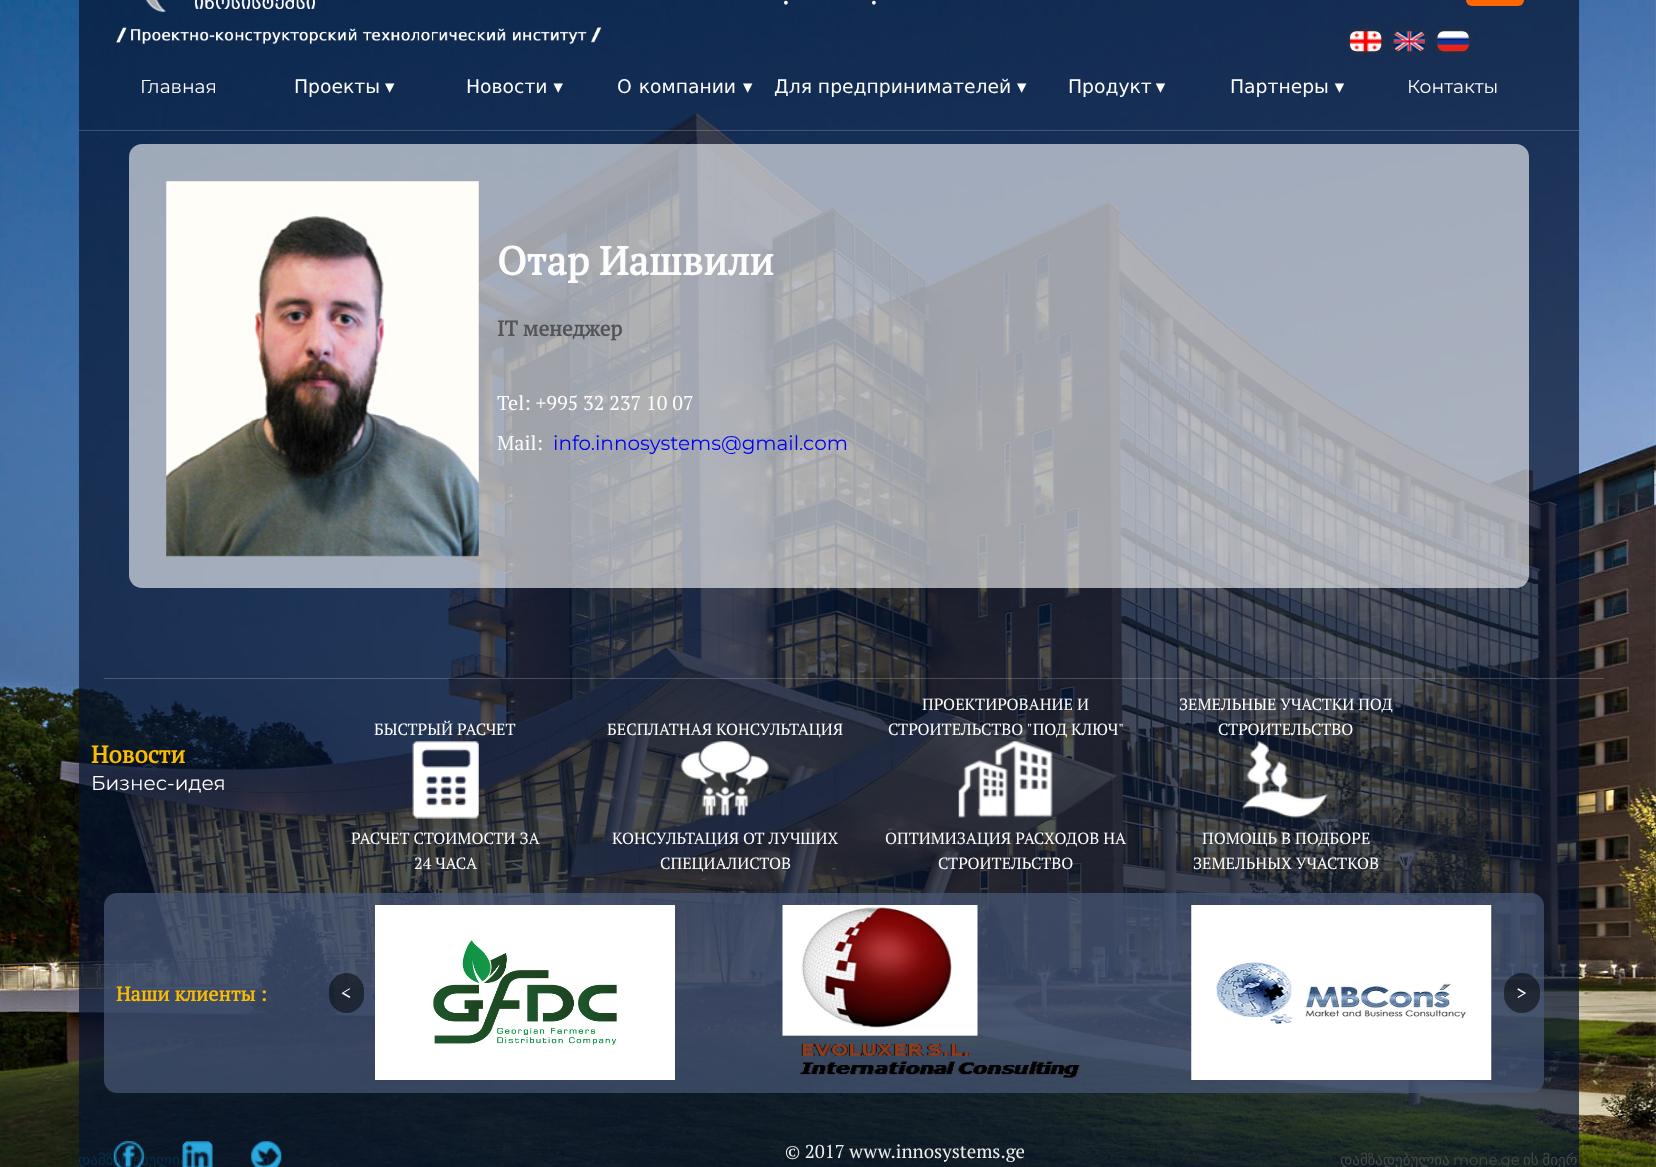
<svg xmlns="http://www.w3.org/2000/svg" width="1656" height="1167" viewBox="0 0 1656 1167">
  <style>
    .t1 { font: 31px Liberation Serif; fill: #fcfcfc; }
    .t2 { font: 100 18.75px Montserrat; fill: #fcfcfc; }
    .t3 { font: 18.75px DejaVu Sans; fill: #fcfcfc; }
    .t4 { font: bold 40px PT Serif; fill: #fcfcfc; }
    .t5 { font: bold 21.25px PT Serif; fill: #545458; }
    .t6 { font: 20px PT Serif; fill: #fcfcfc; }
    .t7 { font: 100 20px Montserrat; fill: #00e; }
    .t8 { font: 16.25px PT Serif; fill: #fcfcfc; }
    .t9 { font: bold 20px PT Serif; fill: #fbbb00; }
    .t10 { font: bold 24px PT Serif; fill: #fbbb00; }
    .t11 { font: 100 20px Montserrat; fill: #fcfcfc; }
    .t12 { font: 15px DejaVu Sans; fill: #0a2f49; }
    .t13 { font: 18.75px PT Serif; fill: #eeefef; }
    .t14 { font: 15px DejaVu Sans; fill: #474749; }
    .t15 { font: 100 15px Montserrat; fill: #474749; }
  </style>
  <rect width="100%" height="100%" fill="#fff"/>
  <image x="0" y="0" width="1656" height="1167" href="images/6.png"/>
  <rect x="79" y="0" width="1500" height="130" fill="#04132fb3"/>
  <image x="116" y="0" width="486" height="44" href="images/1.png"/>
  <text x="782" y="4" class="t1">.</text>
  <text x="870" y="4" class="t1">.</text>
  <rect x="1466" y="-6" width="58" height="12" rx="6" fill="#f60"/>
  <rect x="1350" y="31" width="31" height="20" rx="6" fill="#333" filter="blur(3px)"/>
  <image x="1350" y="31" width="32" height="21" href="images/2.png"/>
  <rect x="1394" y="31" width="31" height="20" rx="6" fill="#333" filter="blur(3px)"/>
  <image x="1393" y="31" width="32" height="21" href="images/3.png"/>
  <rect x="1438" y="31" width="31" height="20" rx="6" fill="#333" filter="blur(3px)"/>
  <image x="1437" y="31" width="32" height="21" href="images/4.png"/>
  <text x="140" y="93" class="t2">Главная</text>
  <text x="294" y="93" word-spacing="-1" class="t3">Проекты ▾</text>
  <text x="466" y="93" class="t3">Новости ▾</text>
  <text x="617" y="93" word-spacing="1" class="t3">О компании ▾</text>
  <text x="774" y="93" class="t3">Для предпринимателей ▾</text>
  <text x="1068" y="93" word-spacing="-2" class="t3">Продукт ▾</text>
  <text x="1230" y="93" class="t3">Партнеры ▾</text>
  <text x="1407" y="93" class="t2">Контакты</text>
  <rect x="79" y="130" width="1500" height="458" fill="#04132fb3"/>
  <rect x="79" y="130" width="1500" height="1" fill="#ffffff33"/>
  <rect x="129" y="144" width="1400" height="444" rx="13" fill="#ffffff99"/>
  <image x="166" y="181" width="313" height="376" href="images/5.png"/>
  <text x="497" y="275" class="t4">Отар Иашвили</text>
  <text x="497" y="336" class="t5">IT менеджер</text>
  <text x="497" y="410" class="t6">Tel: +995 32 237 10 07</text>
  <text x="497" y="450" class="t6">Mail:</text>
  <text x="553" y="450" class="t7">info.innosystems@gmail.com</text>
  <rect x="79" y="588" width="1500" height="579" fill="#04132fb3"/>
  <rect x="104" y="678" width="1500" height="1" fill="#ffffff33"/>
  <text x="374" y="735" class="t8">БЫСТРЫЙ РАСЧЕТ</text>
  <image x="412" y="741" width="67" height="78" href="images/7.png"/>
  <text x="351" y="844" class="t8">РАСЧЕТ СТОИМОСТИ ЗА</text>
  <text x="414" y="869" class="t8">24 ЧАСА</text>
  <text x="607" y="735" class="t8">БЕСПЛАТНАЯ КОНСУЛЬТАЦИЯ</text>
  <image x="680" y="741" width="89" height="76" href="images/8.png"/>
  <text x="612" y="844" class="t8">КОНСУЛЬТАЦИЯ ОТ ЛУЧШИХ</text>
  <text x="660" y="869" class="t8">СПЕЦИАЛИСТОВ</text>
  <text x="922" y="710" class="t8">ПРОЕКТИРОВАНИЕ И</text>
  <text x="888" y="735" class="t8">СТРОИТЕЛЬСТВО "ПОД КЛЮЧ"</text>
  <image x="958" y="741" width="95" height="77" href="images/9.png"/>
  <text x="885" y="844" class="t8">ОПТИМИЗАЦИЯ РАСХОДОВ НА</text>
  <text x="938" y="869" class="t8">СТРОИТЕЛЬСТВО</text>
  <text x="1179" y="710" class="t8">ЗЕМЕЛЬНЫЕ УЧАСТКИ ПОД</text>
  <text x="1218" y="735" class="t8">СТРОИТЕЛЬСТВО</text>
  <image x="1242" y="741" width="86" height="77" href="images/10.png"/>
  <text x="1202" y="844" class="t8">ПОМОЩЬ В ПОДБОРЕ</text>
  <text x="1193" y="869" class="t8">ЗЕМЕЛЬНЫХ УЧАСТКОВ</text>
  <rect x="104" y="893" width="1440" height="200" rx="13" fill="#495877b3"/>
  <text x="116" y="1001" class="t9">Наши клиенты :</text>
  <rect x="329" y="973" width="35" height="40" rx="17.5" fill="#00000080"/>
  <text x="341" y="1000" class="t6">&lt;</text>
  <image x="375" y="905" width="300" height="175" href="images/11.png"/>
  <image x="782" y="905" width="298" height="173" href="images/12.png"/>
  <image x="1191" y="905" width="301" height="175" href="images/13.png"/>
  <rect x="1504" y="973" width="36" height="40" rx="18" fill="#00000080"/>
  <text x="1516" y="1000" class="t6">&gt;</text>
  <text x="91" y="763" class="t10">Новости</text>
  <text x="91" y="790" class="t11">Бизнес-идея</text>
  <text x="78" y="1165" class="t12">დამზადებულია</text>
  <image x="113" y="1141" width="31" height="26" href="images/14.png"/>
  <image x="182" y="1141" width="31" height="26" href="images/15.png"/>
  <text x="262" y="1165" class="t12">ი</text>
  <image x="251" y="1141" width="31" height="26" href="images/16.png"/>
  <text x="785" y="1158" class="t13">© 2017 www.innosystems.ge</text>
  <text x="1340" y="1165" class="t14">დამზადებულია</text>
  <text x="1453" y="1165" class="t15">mone.ge</text>
  <text x="1523" y="1165" word-spacing="-1" class="t14">ის მიერ</text>
</svg>
